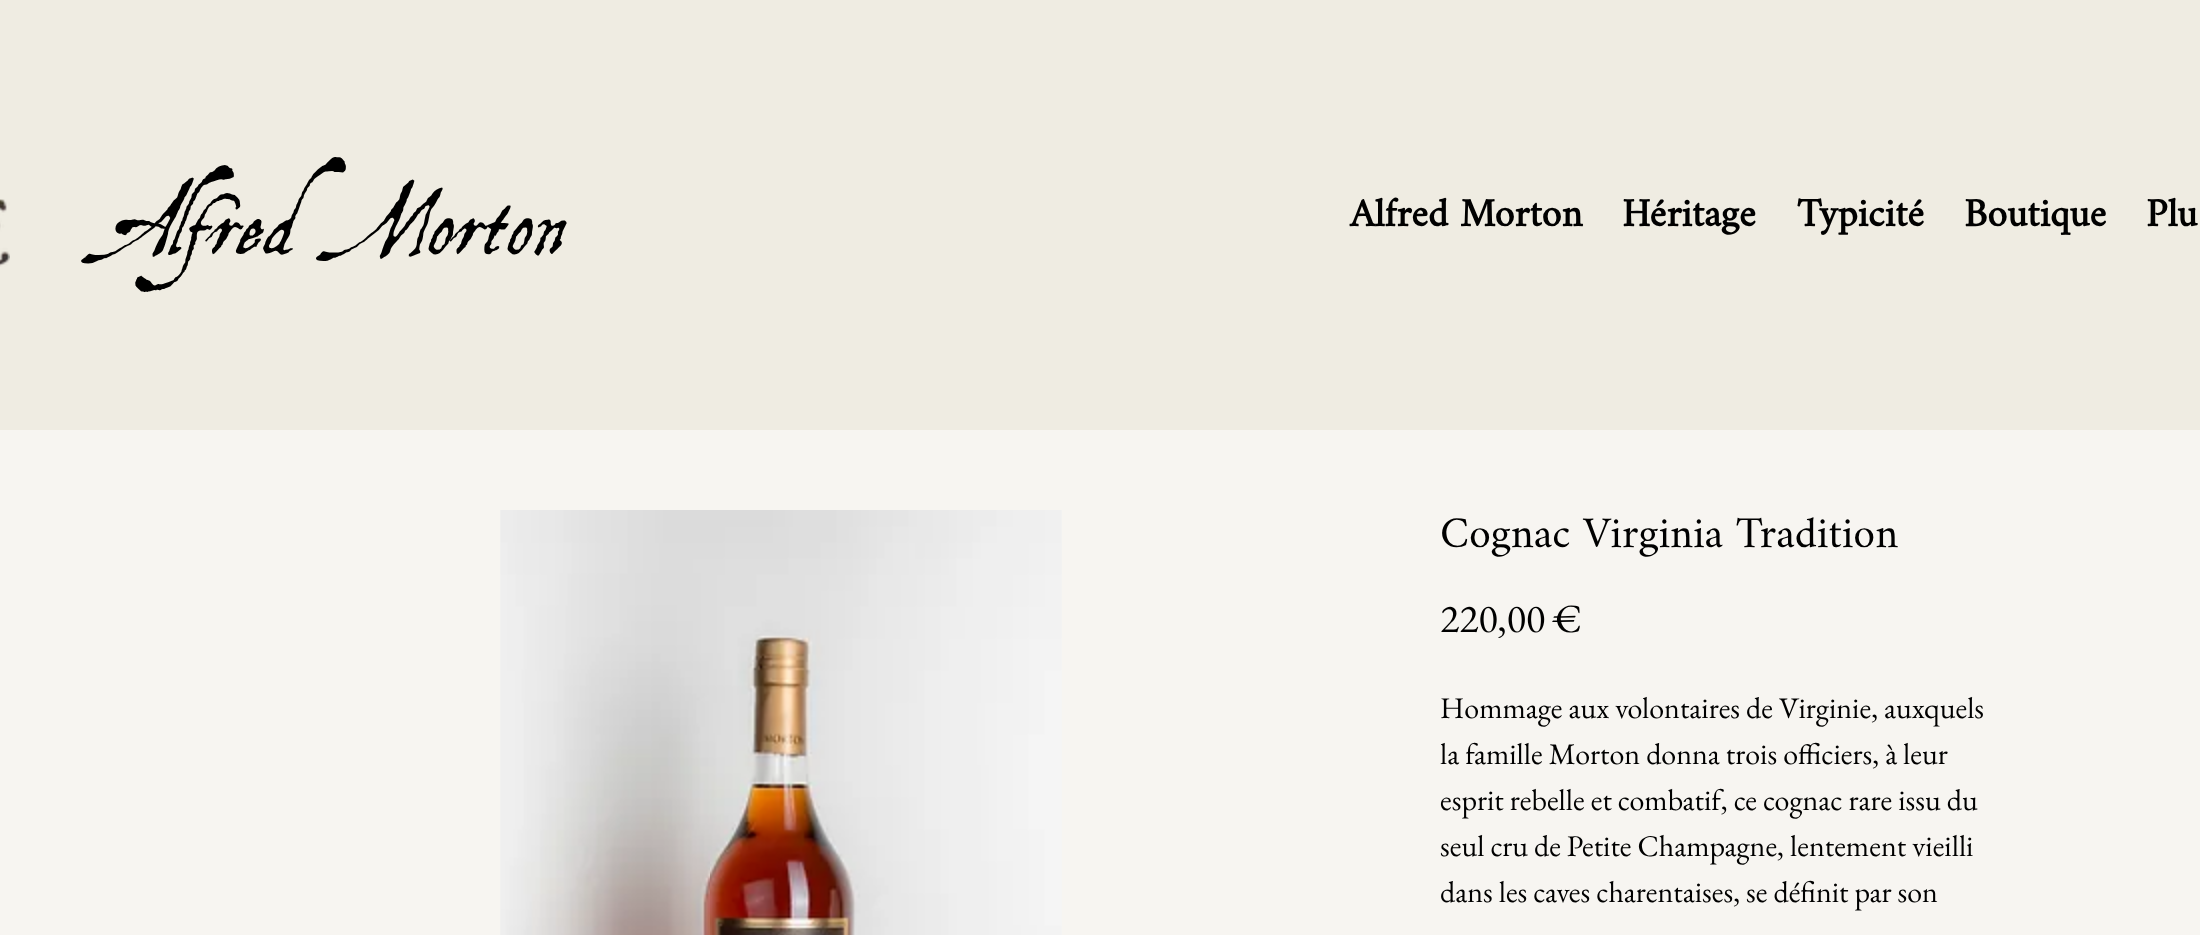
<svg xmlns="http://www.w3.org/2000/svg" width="2200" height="935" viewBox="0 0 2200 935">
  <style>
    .t1 { font: 500 90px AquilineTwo; fill: #000; }
    .t2 { font: bold 40px Amiri; fill: #000; }
    .t3 { font: 44px Amiri; fill: #000; }
    .t4 { font: 40px EB Garamond; fill: #000; }
    .t5 { font: 30px EB Garamond; fill: #000; }
  </style>
  <rect width="100%" height="100%" fill="#f7f5f1"/>
  <rect x="0" y="0" width="2200" height="430" fill="#efece2"/>
  <image x="0" y="199" width="10" height="68" href="images/1.png"/>
  <text x="120" y="254" class="t1">Alfred Morton</text>
  <text x="1350" y="226" class="t2">Alfred Morton</text>
  <text x="1622" y="226" class="t2">Héritage</text>
  <text x="1797" y="226" class="t2">Typicité</text>
  <text x="1964" y="226" class="t2">Boutique</text>
  <text x="2146" y="226" class="t2">Plu</text>
  <image x="500" y="510" width="562" height="425" href="images/2.png"/>
  <text x="1440" y="547" class="t3">Cognac Virginia Tradition</text>
  <text x="1440" y="632" class="t4">220,00 €</text>
  <text x="1440" y="718" class="t5">Hommage aux volontaires de Virginie, auxquels</text>
  <text x="1440" y="764" class="t5">la famille Morton donna trois officiers, à leur</text>
  <text x="1440" y="810" class="t5">esprit rebelle et combatif, ce cognac rare issu du</text>
  <text x="1440" y="856" class="t5">seul cru de Petite Champagne, lentement vieilli</text>
  <text x="1440" y="902" class="t5">dans les caves charentaises, se définit par son</text>
</svg>
